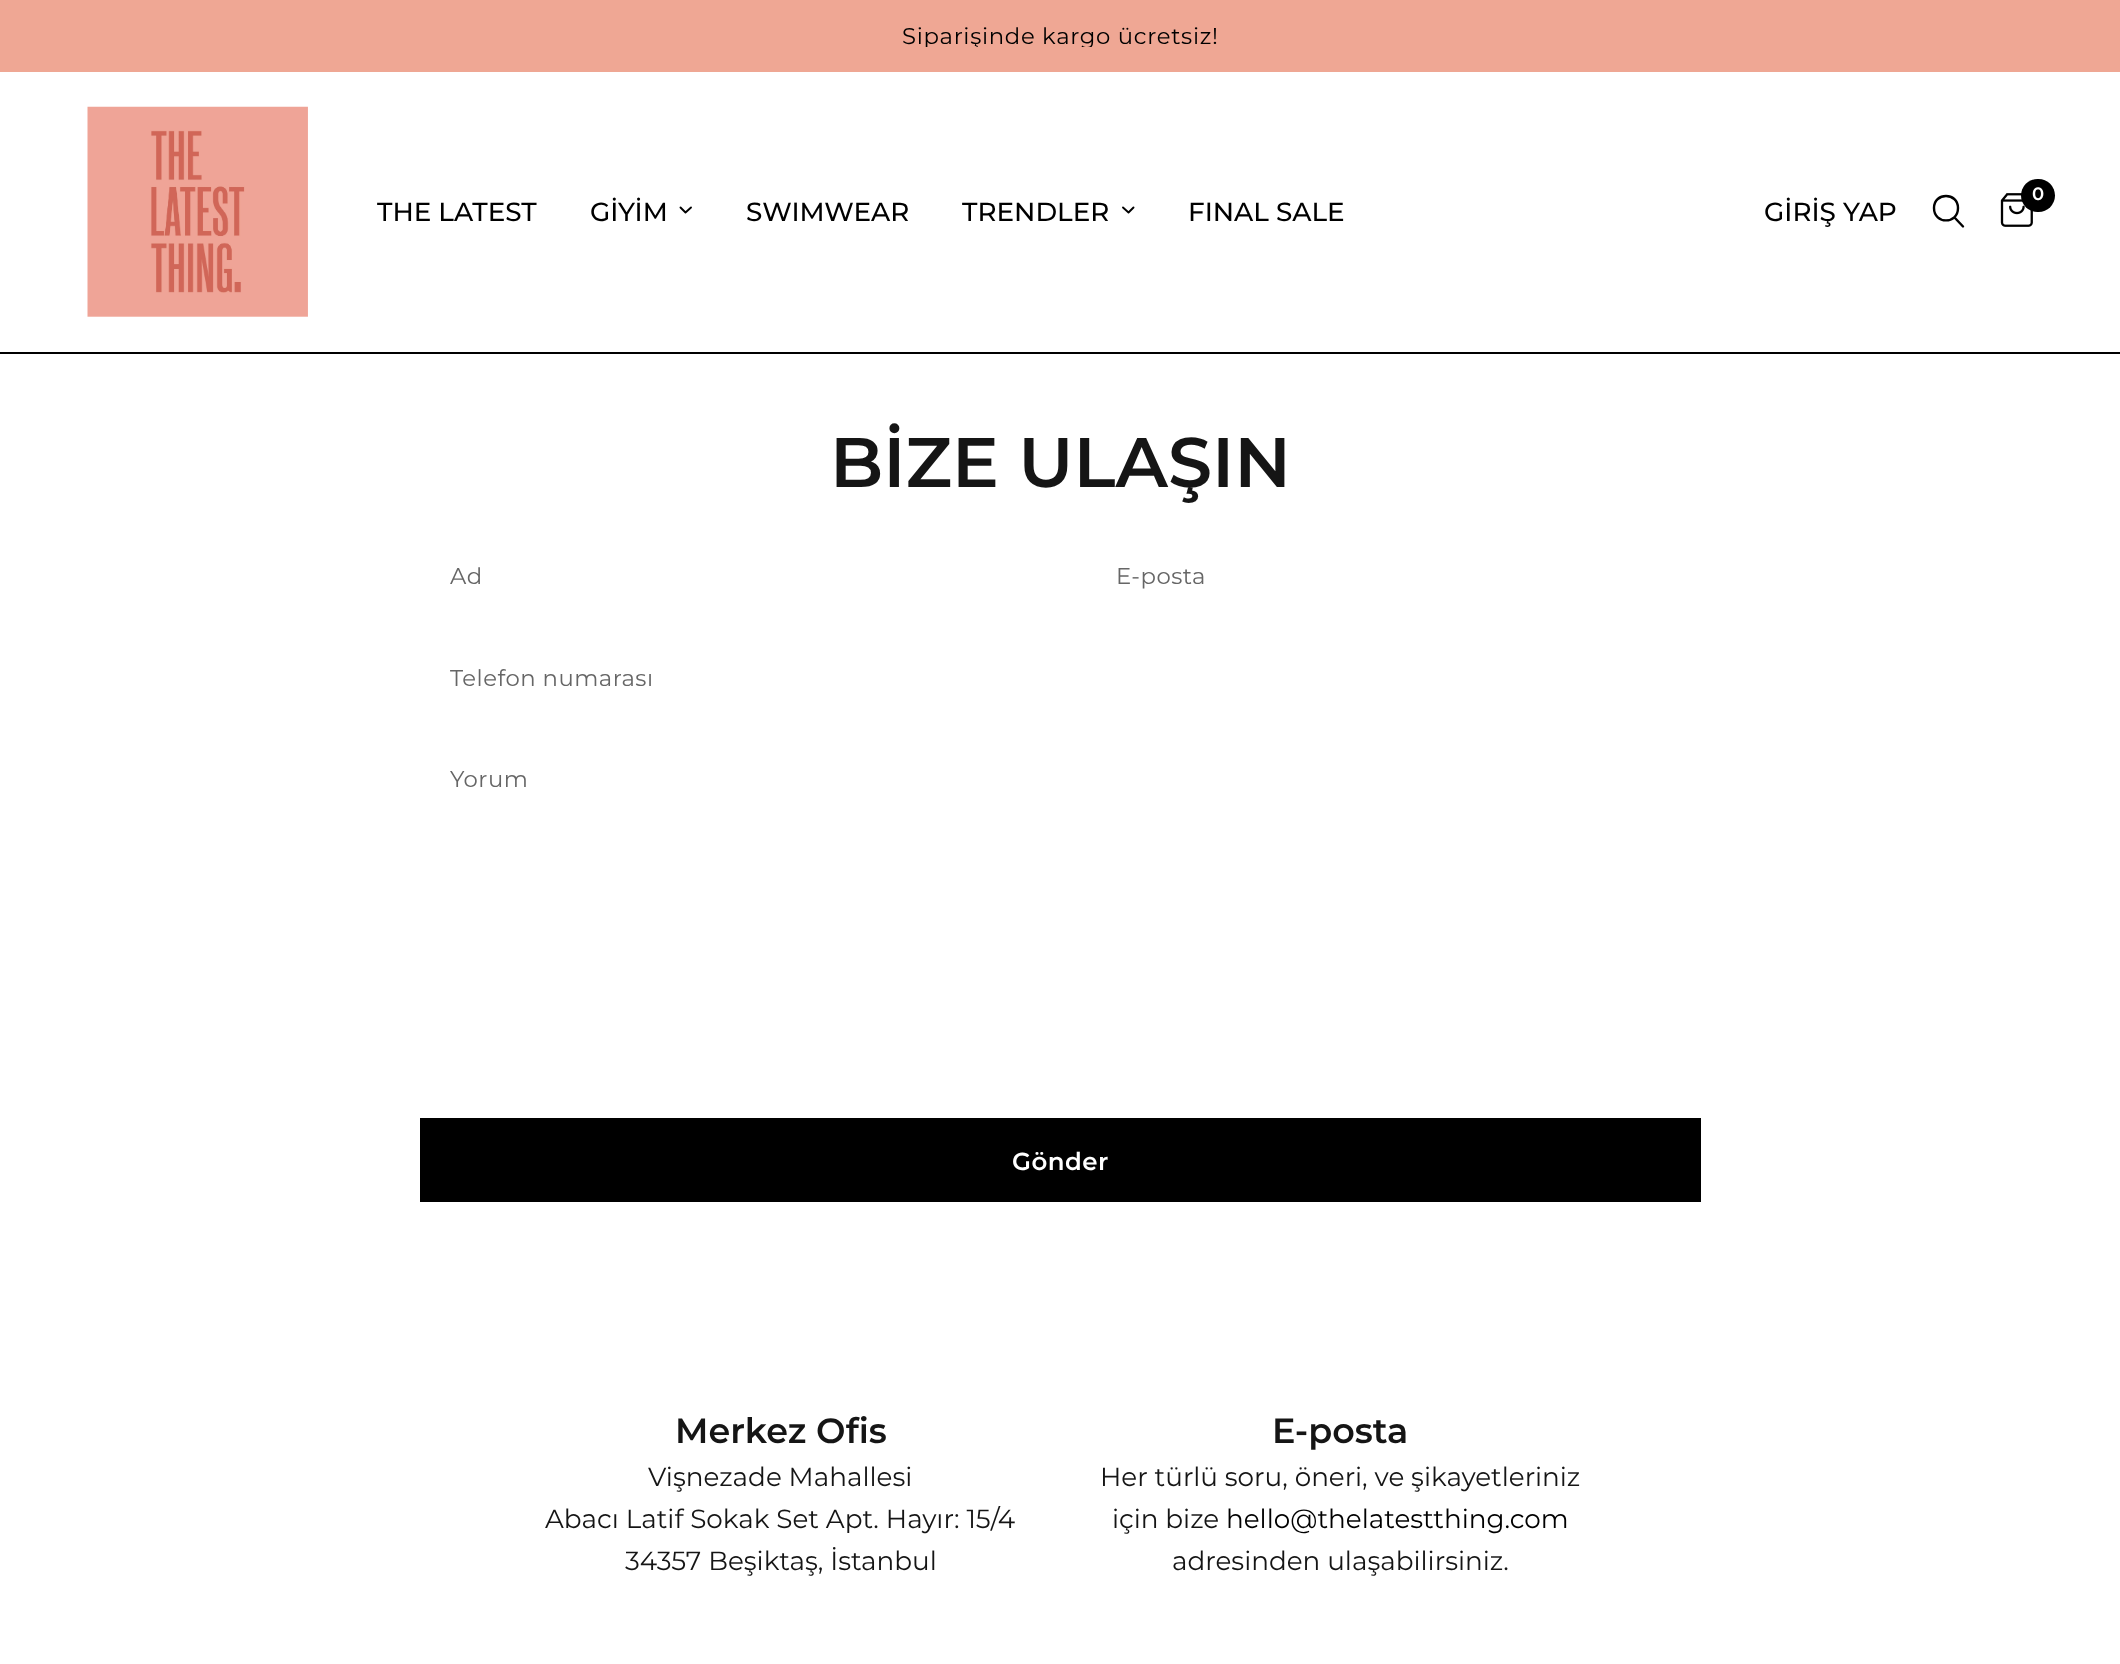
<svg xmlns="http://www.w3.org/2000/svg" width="2120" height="1664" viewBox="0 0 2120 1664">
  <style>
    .t1 { font: 22.75px Montserrat; letter-spacing: 0.7px; fill: #000; }
    .t2 { font: 500 26.25px Montserrat; fill: #000; }
    .t3 { font: 600 18px Montserrat; fill: #fff; }
    .t4 { font: 600 70px Montserrat; fill: #151515; }
    .t5 { font: 22.75px Montserrat; letter-spacing: 0.5px; fill: #666; }
    .t6 { font: 600 24.5px Montserrat; letter-spacing: 0.5px; fill: #fff; }
    .t7 { font: 600 35px Montserrat; fill: #151515; }
    .t8 { font: 26.25px Montserrat; fill: #151515; }
    .t9 { font: 26.25px Montserrat; fill: #000; }
  </style>
  <defs>
    <clipPath id="clip1"><rect x="623" y="25" width="875" height="22"/></clipPath>
  </defs>
  <rect width="100%" height="100%" fill="#fff"/>
  <rect x="0" y="0" width="2120" height="72" fill="#efa794"/>
  <g clip-path="url(#clip1)">
    <text x="902" y="44" class="t1">Siparişinde kargo ücretsiz!</text>
  </g>
  <rect x="0" y="352" width="2120" height="2" fill="#000"/>
  <image x="87" y="106" width="221" height="211" href="images/1.png"/>
  <text x="377" y="221" class="t2">THE LATEST</text>
  <text x="590" y="221" class="t2">GİYİM</text>
  <path d="M691 207.5L685.5 212.5L680.5 207.5" fill="none" stroke="#000" stroke-width="1.9" stroke-linecap="round" stroke-linejoin="round"/>
  <text x="746" y="221" class="t2">SWIMWEAR</text>
  <text x="962" y="221" class="t2">TRENDLER</text>
  <path d="M1133.5 207.5L1128.5 212.5L1123 207.5" fill="none" stroke="#000" stroke-width="1.9" stroke-linecap="round" stroke-linejoin="round"/>
  <text x="1188" y="221" class="t2">FINAL SALE</text>
  <text x="1764" y="221" class="t2">GİRİŞ YAP</text>
  <path d="M1955 218L1963 226.5M1958 208C1958 224.5 1934 224.5 1934 208C1934 192 1958 192 1958 208Z" fill="none" stroke="#000" stroke-width="2.4" stroke-linecap="round" stroke-linejoin="round"/>
  <image x="2000" y="193" width="33" height="34" href="images/2.png"/>
  <rect x="2021" y="179" width="34" height="33" rx="16.5" fill="#000"/>
  <text x="2032" y="200" class="t3">0</text>
  <text x="830" y="487" class="t4">BİZE ULAŞIN</text>
  <text x="450" y="584" class="t5">Ad</text>
  <text x="1116" y="584" class="t5">E-posta</text>
  <text x="450" y="686" class="t5">Telefon numarası</text>
  <text x="450" y="787" class="t5">Yorum</text>
  <rect x="420" y="1118" width="1281" height="84" fill="#000"/>
  <text x="1012" y="1170" class="t6">Gönder</text>
  <text x="675" y="1443" class="t7">Merkez Ofis</text>
  <text x="648" y="1486" class="t8">Vişnezade Mahallesi</text>
  <text x="545" y="1528" class="t8">Abacı Latif Sokak Set Apt. Hayır: 15/4</text>
  <text x="625" y="1570" class="t8">34357 Beşiktaş, İstanbul</text>
  <text x="1272" y="1443" class="t7">E-posta</text>
  <text x="1100" y="1486" class="t8">Her türlü soru, öneri, ve şikayetleriniz</text>
  <text x="1112" y="1528" class="t8">için bize</text>
  <text x="1226" y="1528" class="t9">hello@thelatestthing.com</text>
  <text x="1172" y="1570" class="t8">adresinden ulaşabilirsiniz.</text>
</svg>
